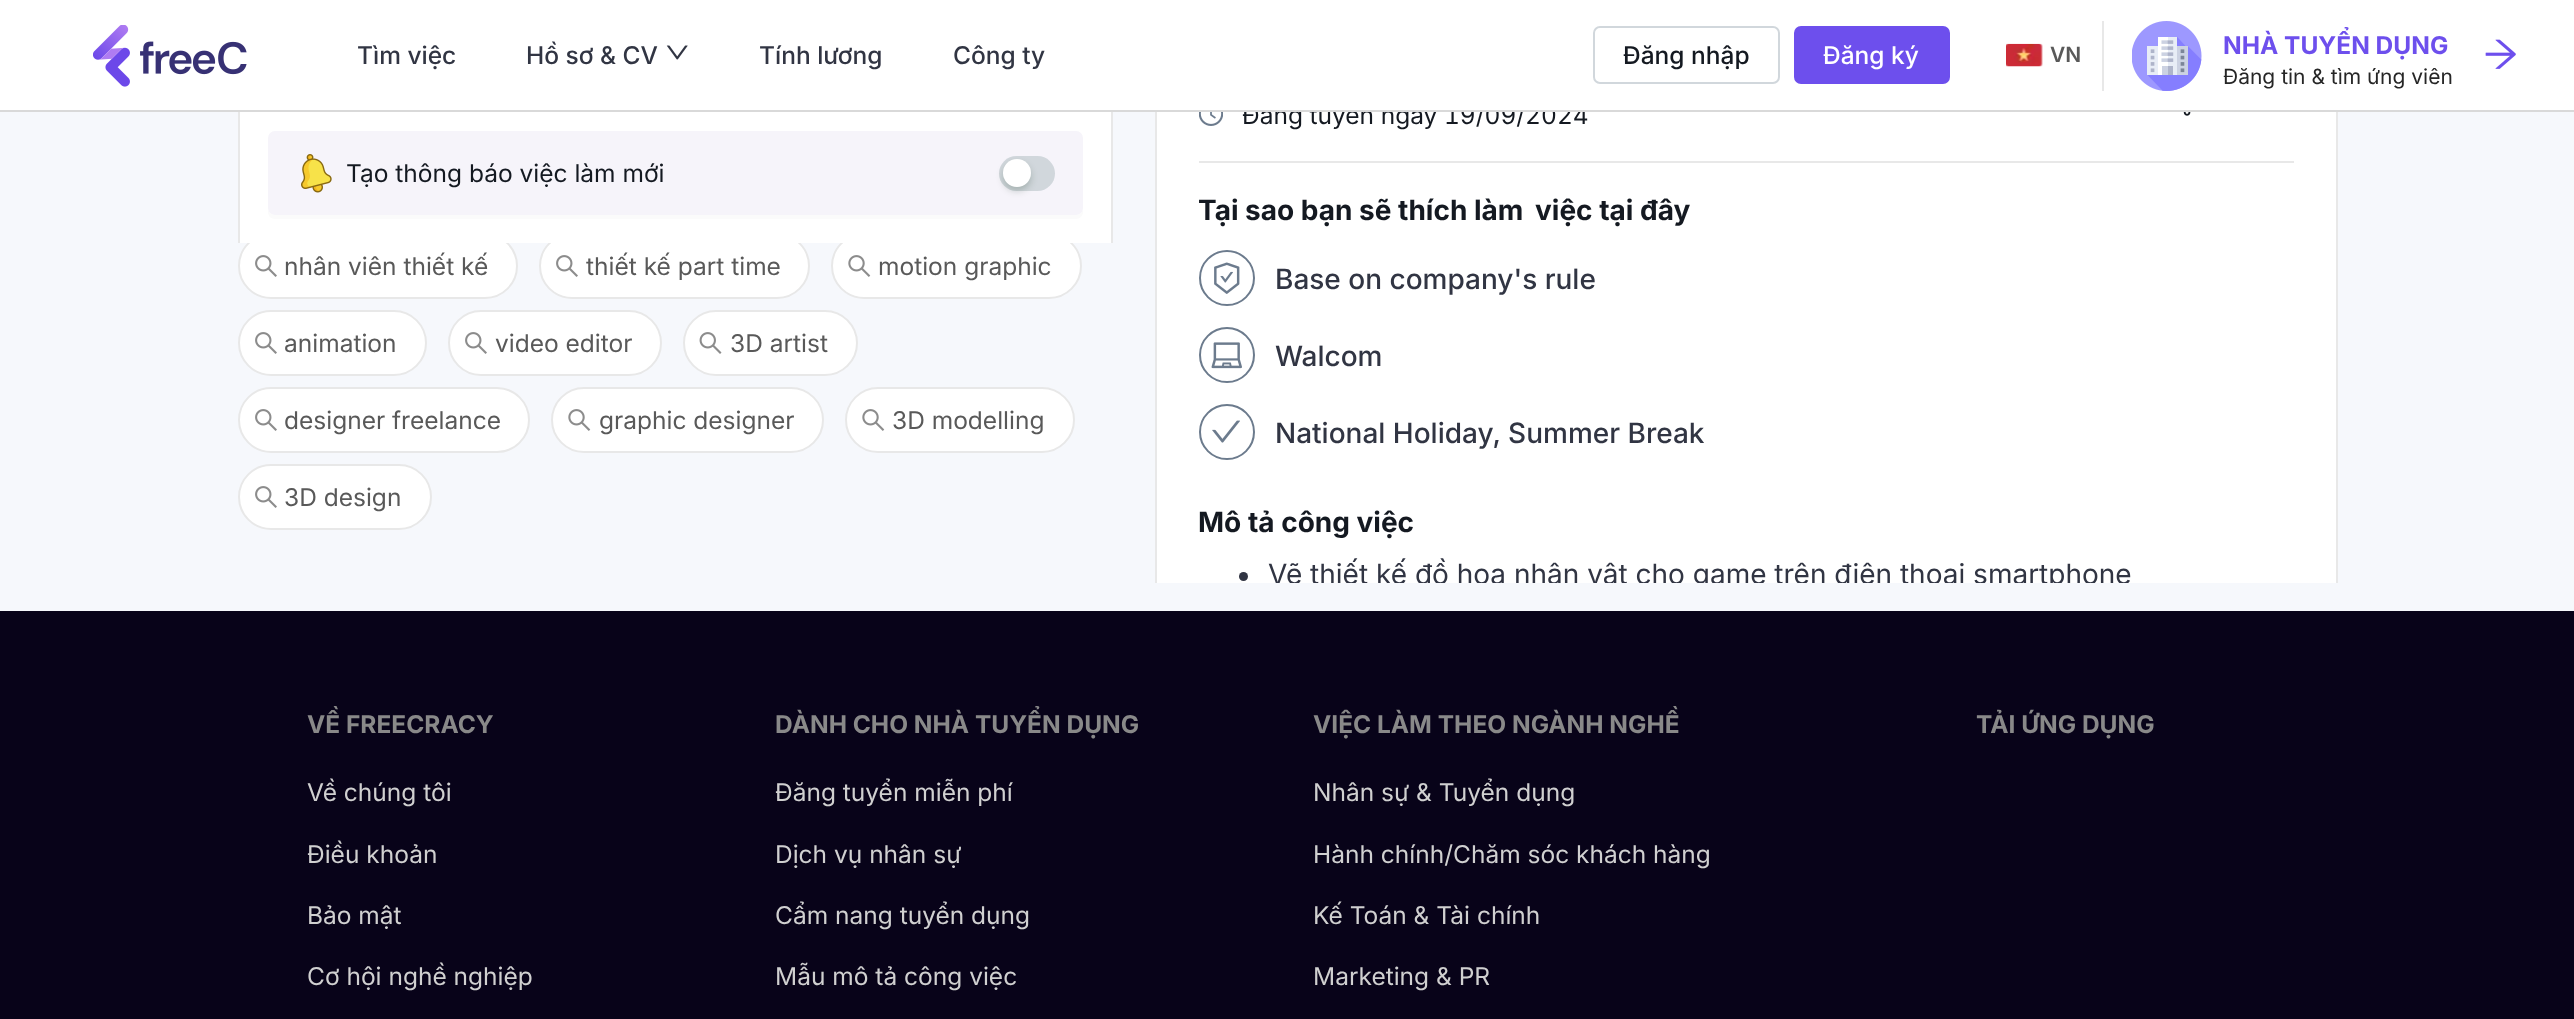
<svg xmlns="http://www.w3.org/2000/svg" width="2574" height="1019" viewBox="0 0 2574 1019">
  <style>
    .t1 { font: 24.5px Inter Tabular; fill: #141921; }
    .t2 { font: 500 24.5px Inter; fill: #313543; }
    .t3 { font: 500 24.5px Inter; fill: #141921; }
    .t4 { font: 500 24.5px Inter; fill: #fff; }
    .t5 { font: 600 21px Inter; fill: #595959; }
    .t6 { font: bold 24.5px Inter; fill: #6d4fed; }
    .t7 { font: 21px Inter; fill: #262626; }
    .t8 { font: 24.5px Inter; fill: #141921; }
    .t9 { font: 24.5px Inter; fill: #595959; }
    .t10 { font: bold 28px Inter; fill: #141921; }
    .t11 { font: 500 28px Inter; fill: #313543; }
    .t12 { font: 28px Inter; fill: #313543; }
    .t13 { font: bold 24.5px Inter; fill: #898989; }
    .t14 { font: 24.5px Inter; fill: #d0d0d0; }
  </style>
  <defs>
    <clipPath id="clip1"><rect x="1113" y="0" width="1225" height="583"/></clipPath>
  </defs>
  <rect width="100%" height="100%" fill="#f6f8fc"/>
  <rect x="239" y="234" width="278" height="64" rx="32" fill="#fff" stroke="#e8e8e8" stroke-width="2"/>
  <rect x="540" y="234" width="269" height="64" rx="32" fill="#fff" stroke="#e8e8e8" stroke-width="2"/>
  <rect x="832" y="234" width="249" height="64" rx="32" fill="#fff" stroke="#e8e8e8" stroke-width="2"/>
  <rect x="240" y="112" width="871" height="131" fill="#fff"/>
  <path d="M245 49H1106C1110 49 1113 52 1113 56V243H238V56C238 52 241 49 245 49ZM245 51H1106C1109 51 1111 53 1111 56V243H240V56C240 53 242 51 245 51Z" fill="#e8e8e8" fill-rule="evenodd"/>
  <rect x="1157" y="112" width="1179" height="471" fill="#fff"/>
  <g clip-path="url(#clip1)">
    <path d="M1162-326H2331C2335-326 2338-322 2338-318V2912C2338 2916 2335 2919 2331 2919H1162C1158 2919 1155 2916 1155 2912V-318C1155-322 1158-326 1162-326ZM1162-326H2331C2334-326 2336-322 2336-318V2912C2336 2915 2334 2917 2331 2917H1162C1159 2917 1157 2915 1157 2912V-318C1157-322 1159-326 1162-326Z" fill="#e8e8e8" fill-rule="evenodd"/>
  </g>
  <text x="1242" y="124" class="t1">Đăng tuyển ngày 19/09/2024</text>
  <rect x="0" y="0" width="2574" height="110" fill="#fff"/>
  <rect x="0" y="110" width="2574" height="2" fill="#d9d9d9"/>
  <image x="93" y="25" width="154" height="62" href="images/1.png"/>
  <text x="357" y="64" class="t2">Tìm việc</text>
  <text x="526" y="64" class="t2">Hồ sơ &amp; CV</text>
  <image x="666" y="45" width="22" height="15" href="images/2.png"/>
  <text x="759" y="64" class="t2">Tính lương</text>
  <text x="953" y="64" class="t2">Công ty</text>
  <rect x="1594" y="27" width="185" height="56" rx="6" fill="none" stroke="#d1d7dc" stroke-width="2"/>
  <text x="1623" y="64" class="t3">Đăng nhập</text>
  <rect x="1795" y="27" width="154" height="56" rx="6" fill="#6d4fed" stroke="#6d4fed" stroke-width="2"/>
  <text x="1823" y="64" class="t4">Đăng ký</text>
  <image x="2006" y="43" width="37" height="24" href="images/3.png"/>
  <text x="2050" y="62" class="t5">VN</text>
  <rect x="2102" y="21" width="2" height="70" fill="#e8e8e8"/>
  <image x="2132" y="21" width="70" height="70" href="images/4.png"/>
  <text x="2223" y="54" class="t6">NHÀ TUYỂN DỤNG</text>
  <text x="2223" y="84" class="t7">Đăng tin &amp; tìm ứng viên</text>
  <image x="2485" y="39" width="31" height="30" href="images/5.png"/>
  <path d="M268 210V212C268 216 271 219 275 219H1076C1080 219 1083 216 1083 212V210C1082 213 1079 215 1076 215H275C272 215 269 213 268 210Z" fill="#fbfbfb"/>
  <rect x="268" y="131" width="815" height="84" rx="7" fill="#f6f4fa"/>
  <image x="301" y="154" width="31" height="39" href="images/6.png"/>
  <text x="346" y="182" class="t8">Tạo thông báo việc làm mới</text>
  <rect x="999" y="156" width="56" height="35" rx="17.5" fill="#d1d7dc"/>
  <rect x="1003" y="163" width="28" height="28" rx="14" fill="#00230b33" filter="blur(3.5px)"/>
  <circle cx="1017" cy="173" r="14" fill="#fff"/>
  <image x="255" y="255" width="22" height="22" href="images/7.png"/>
  <text x="284" y="275" class="t9">nhân viên thiết kế</text>
  <image x="556" y="255" width="22" height="22" href="images/7.png"/>
  <text x="586" y="275" class="t9">thiết kế part time</text>
  <image x="848" y="255" width="23" height="22" href="images/8.png"/>
  <text x="878" y="275" class="t9">motion graphic</text>
  <rect x="239" y="311" width="187" height="64" rx="32" fill="#fff" stroke="#e8e8e8" stroke-width="2"/>
  <image x="255" y="332" width="22" height="22" href="images/7.png"/>
  <text x="284" y="352" class="t9">animation</text>
  <rect x="449" y="311" width="212" height="64" rx="32" fill="#fff" stroke="#e8e8e8" stroke-width="2"/>
  <image x="465" y="332" width="22" height="22" href="images/7.png"/>
  <text x="495" y="352" class="t9">video editor</text>
  <rect x="684" y="311" width="173" height="64" rx="32" fill="#fff" stroke="#e8e8e8" stroke-width="2"/>
  <image x="699" y="332" width="23" height="22" href="images/9.png"/>
  <text x="730" y="352" class="t9">3D artist</text>
  <rect x="239" y="388" width="290" height="64" rx="32" fill="#fff" stroke="#e8e8e8" stroke-width="2"/>
  <image x="255" y="409" width="22" height="22" href="images/7.png"/>
  <text x="284" y="429" class="t9">designer freelance</text>
  <rect x="552" y="388" width="271" height="64" rx="32" fill="#fff" stroke="#e8e8e8" stroke-width="2"/>
  <image x="568" y="409" width="23" height="22" href="images/8.png"/>
  <text x="599" y="429" class="t9">graphic designer</text>
  <rect x="846" y="388" width="228" height="64" rx="32" fill="#fff" stroke="#e8e8e8" stroke-width="2"/>
  <image x="862" y="409" width="23" height="22" href="images/8.png"/>
  <text x="892" y="429" class="t9">3D modelling</text>
  <rect x="239" y="465" width="192" height="64" rx="32" fill="#fff" stroke="#e8e8e8" stroke-width="2"/>
  <image x="255" y="486" width="22" height="22" href="images/7.png"/>
  <text x="284" y="506" class="t9">3D design</text>
  <image x="1199" y="112" width="24" height="14" href="images/10.png"/>
  <image x="2183" y="112" width="8" height="4" href="images/11.png"/>
  <rect x="1199" y="161" width="1095" height="2" fill="#e8e8e8"/>
  <text x="1198" y="220" class="t10">Tại sao bạn sẽ thích làm</text>
  <text x="1535" y="220" class="t10">việc tại đây</text>
  <circle cx="1227" cy="278" r="27" fill="none" stroke="#6c7b8d" stroke-width="2"/>
  <image x="1214" y="262" width="26" height="32" href="images/12.png"/>
  <text x="1275" y="289" class="t11">Base on company's rule</text>
  <circle cx="1227" cy="355" r="27" fill="none" stroke="#6c7b8d" stroke-width="2"/>
  <image x="1211" y="342" width="31" height="27" href="images/13.png"/>
  <text x="1275" y="366" class="t11">Walcom</text>
  <circle cx="1227" cy="432" r="27" fill="none" stroke="#6c7b8d" stroke-width="2"/>
  <image x="1212" y="420" width="28" height="23" href="images/14.png"/>
  <text x="1275" y="443" class="t11">National Holiday, Summer Break</text>
  <text x="1198" y="532" class="t10">Mô tả công việc</text>
  <circle cx="1243.5" cy="576.5" r="4.5" fill="#313543"/>
  <g clip-path="url(#clip1)">
    <text x="1268" y="584" class="t12">Vẽ thiết kế đồ họa nhân vật cho game trên điện thoại smartphone</text>
  </g>
  <rect x="0" y="611" width="2574" height="408" fill="#080319"/>
  <text x="307" y="733" class="t13">VỀ FREECRACY</text>
  <text x="307" y="801" class="t14">Về chúng tôi</text>
  <text x="307" y="863" class="t14">Điều khoản</text>
  <text x="307" y="924" class="t14">Bảo mật</text>
  <text x="307" y="985" class="t14">Cơ hội nghề nghiệp</text>
  <text x="775" y="733" class="t13">DÀNH CHO NHÀ TUYỂN DỤNG</text>
  <text x="775" y="801" class="t14">Đăng tuyển miễn phí</text>
  <text x="775" y="863" class="t14">Dịch vụ nhân sự</text>
  <text x="775" y="924" class="t14">Cẩm nang tuyển dụng</text>
  <text x="775" y="985" class="t14">Mẫu mô tả công việc</text>
  <text x="1313" y="733" class="t13">VIỆC LÀM THEO NGÀNH NGHỀ</text>
  <text x="1313" y="801" class="t14">Nhân sự &amp; Tuyển dụng</text>
  <text x="1313" y="863" class="t14">Hành chính/Chăm sóc khách hàng</text>
  <text x="1313" y="924" class="t14">Kế Toán &amp; Tài chính</text>
  <text x="1313" y="985" class="t14">Marketing &amp; PR</text>
  <text x="1976" y="733" class="t13">TẢI ỨNG DỤNG</text>
</svg>
